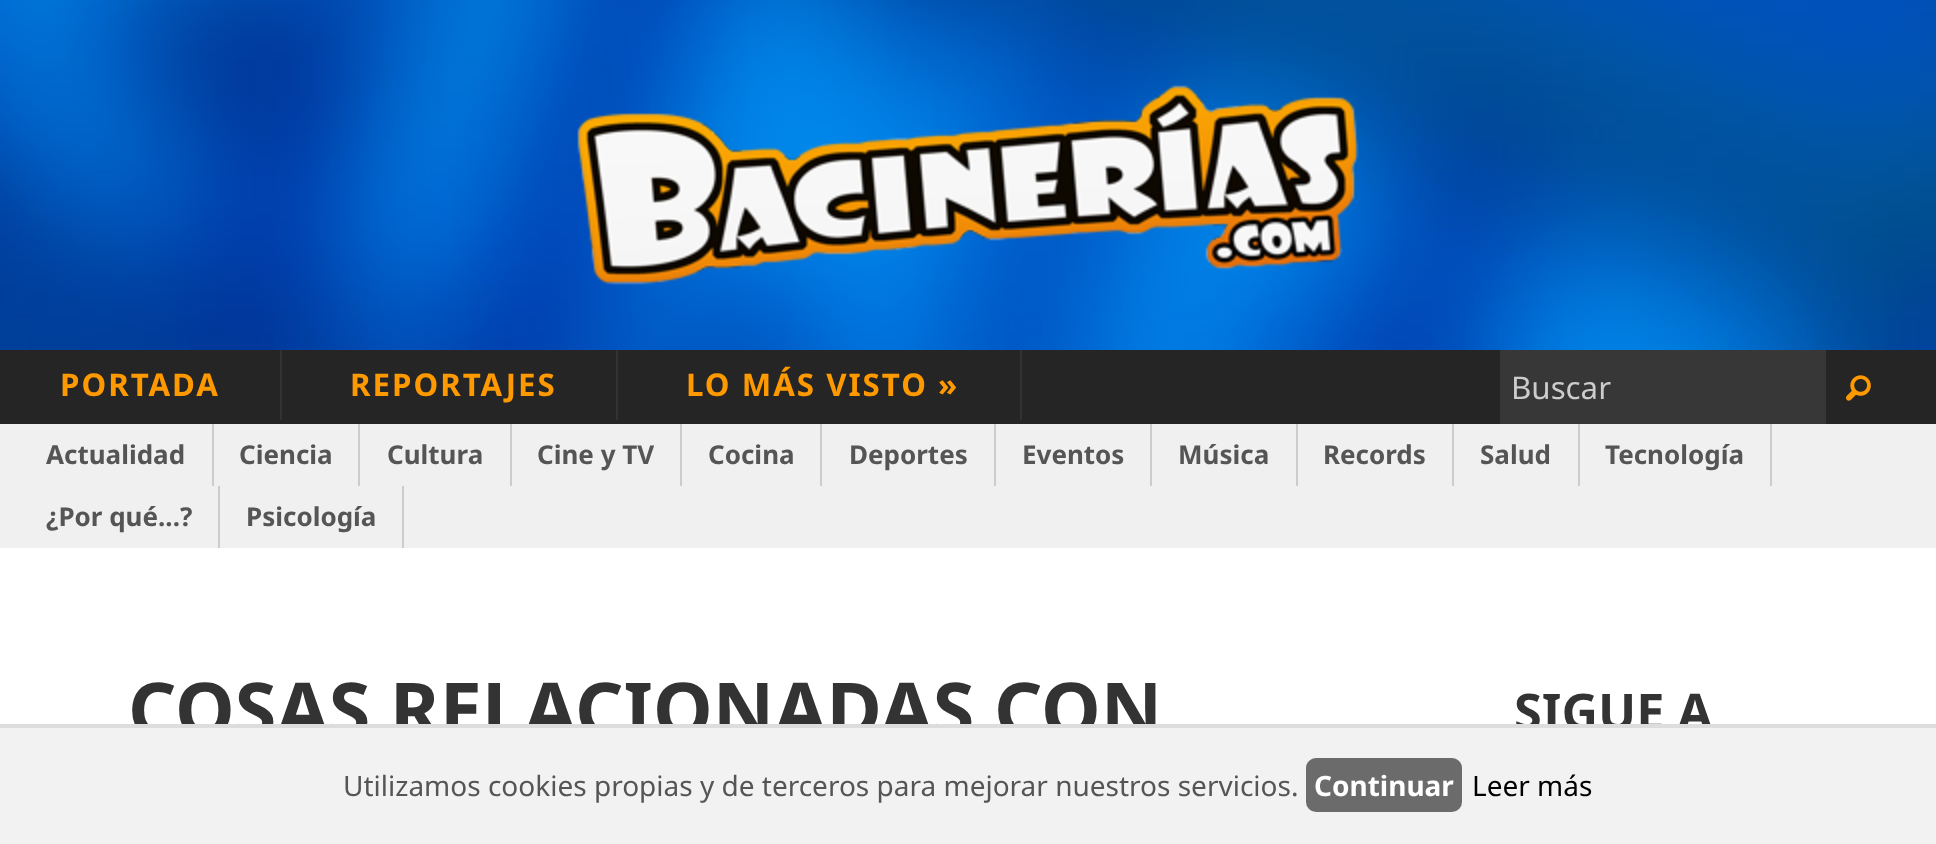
<svg xmlns="http://www.w3.org/2000/svg" width="1936" height="844" viewBox="0 0 1936 844">
  <style>
    .t1 { font: bold 31.25px Noto Sans; letter-spacing: 2px; fill: #f90; }
    .t2 { font: 31.25px Noto Sans; fill: #ccc; }
    .t3 { font: bold 26px Noto Sans; fill: #555; }
    .t4 { font: bold 75.6px Noto Sans; fill: #333; }
    .t5 { font: bold 50.5px Noto Sans; fill: #333; }
    .t6 { font: 28px Noto Sans; fill: #555; }
    .t7 { font: bold 28px Noto Sans; fill: #fff; }
    .t8 { font: 28px Noto Sans; fill: #000; }
  </style>
  <rect width="100%" height="100%" fill="#fff"/>
  <image x="0" y="0" width="1936" height="350" href="images/1.png"/>
  <image x="577" y="85" width="782" height="200" href="images/2.png"/>
  <rect x="0" y="350" width="1936" height="74" fill="#252525"/>
  <rect x="280" y="350" width="2" height="70" fill="#323232"/>
  <text x="60" y="396" class="t1">PORTADA</text>
  <rect x="616" y="350" width="2" height="70" fill="#323232"/>
  <text x="350" y="396" class="t1">REPORTAJES</text>
  <rect x="1020" y="350" width="2" height="70" fill="#323232"/>
  <text x="686" y="396" class="t1">LO MÁS VISTO »</text>
  <rect x="1500" y="350" width="326" height="74" fill="#373737"/>
  <text x="1511" y="399" class="t2">Buscar</text>
  <image x="1846" y="375" width="25" height="26" href="images/3.png"/>
  <rect x="0" y="424" width="1936" height="124" fill="#f0f0f0"/>
  <rect x="212" y="424" width="2" height="62" fill="#ccc"/>
  <text x="46" y="464" class="t3">Actualidad</text>
  <rect x="358" y="424" width="2" height="62" fill="#ccc"/>
  <text x="239" y="464" class="t3">Ciencia</text>
  <rect x="510" y="424" width="2" height="62" fill="#ccc"/>
  <text x="387" y="464" class="t3">Cultura</text>
  <rect x="680" y="424" width="2" height="62" fill="#ccc"/>
  <text x="537" y="464" class="t3">Cine y TV</text>
  <rect x="820" y="424" width="2" height="62" fill="#ccc"/>
  <text x="708" y="464" class="t3">Cocina</text>
  <rect x="994" y="424" width="2" height="62" fill="#ccc"/>
  <text x="849" y="464" class="t3">Deportes</text>
  <rect x="1150" y="424" width="2" height="62" fill="#ccc"/>
  <text x="1022" y="464" class="t3">Eventos</text>
  <rect x="1296" y="424" width="2" height="62" fill="#ccc"/>
  <text x="1178" y="464" class="t3">Música</text>
  <rect x="1452" y="424" width="2" height="62" fill="#ccc"/>
  <text x="1323" y="464" class="t3">Records</text>
  <rect x="1578" y="424" width="2" height="62" fill="#ccc"/>
  <text x="1480" y="464" class="t3">Salud</text>
  <rect x="1770" y="424" width="2" height="62" fill="#ccc"/>
  <text x="1605" y="464" class="t3">Tecnología</text>
  <rect x="218" y="486" width="2" height="62" fill="#ccc"/>
  <text x="46" y="526" class="t3">¿Por qué...?</text>
  <rect x="402" y="486" width="2" height="62" fill="#ccc"/>
  <text x="246" y="526" class="t3">Psicología</text>
  <text x="128" y="737" class="t4">COSAS RELACIONADAS CON</text>
  <text x="1514" y="730" class="t5">SIGUE A</text>
  <rect x="0" y="728" width="1936" height="116" fill="#f2f2f2"/>
  <rect x="0" y="724" width="1936" height="4" fill="#ddd"/>
  <text x="343" y="796" class="t6">Utilizamos cookies propias y de terceros para mejorar nuestros servicios.</text>
  <rect x="1306" y="758" width="156" height="54" rx="10" fill="#6b6b6b"/>
  <text x="1314" y="796" class="t7">Continuar</text>
  <text x="1472" y="796" class="t8">Leer más</text>
</svg>
